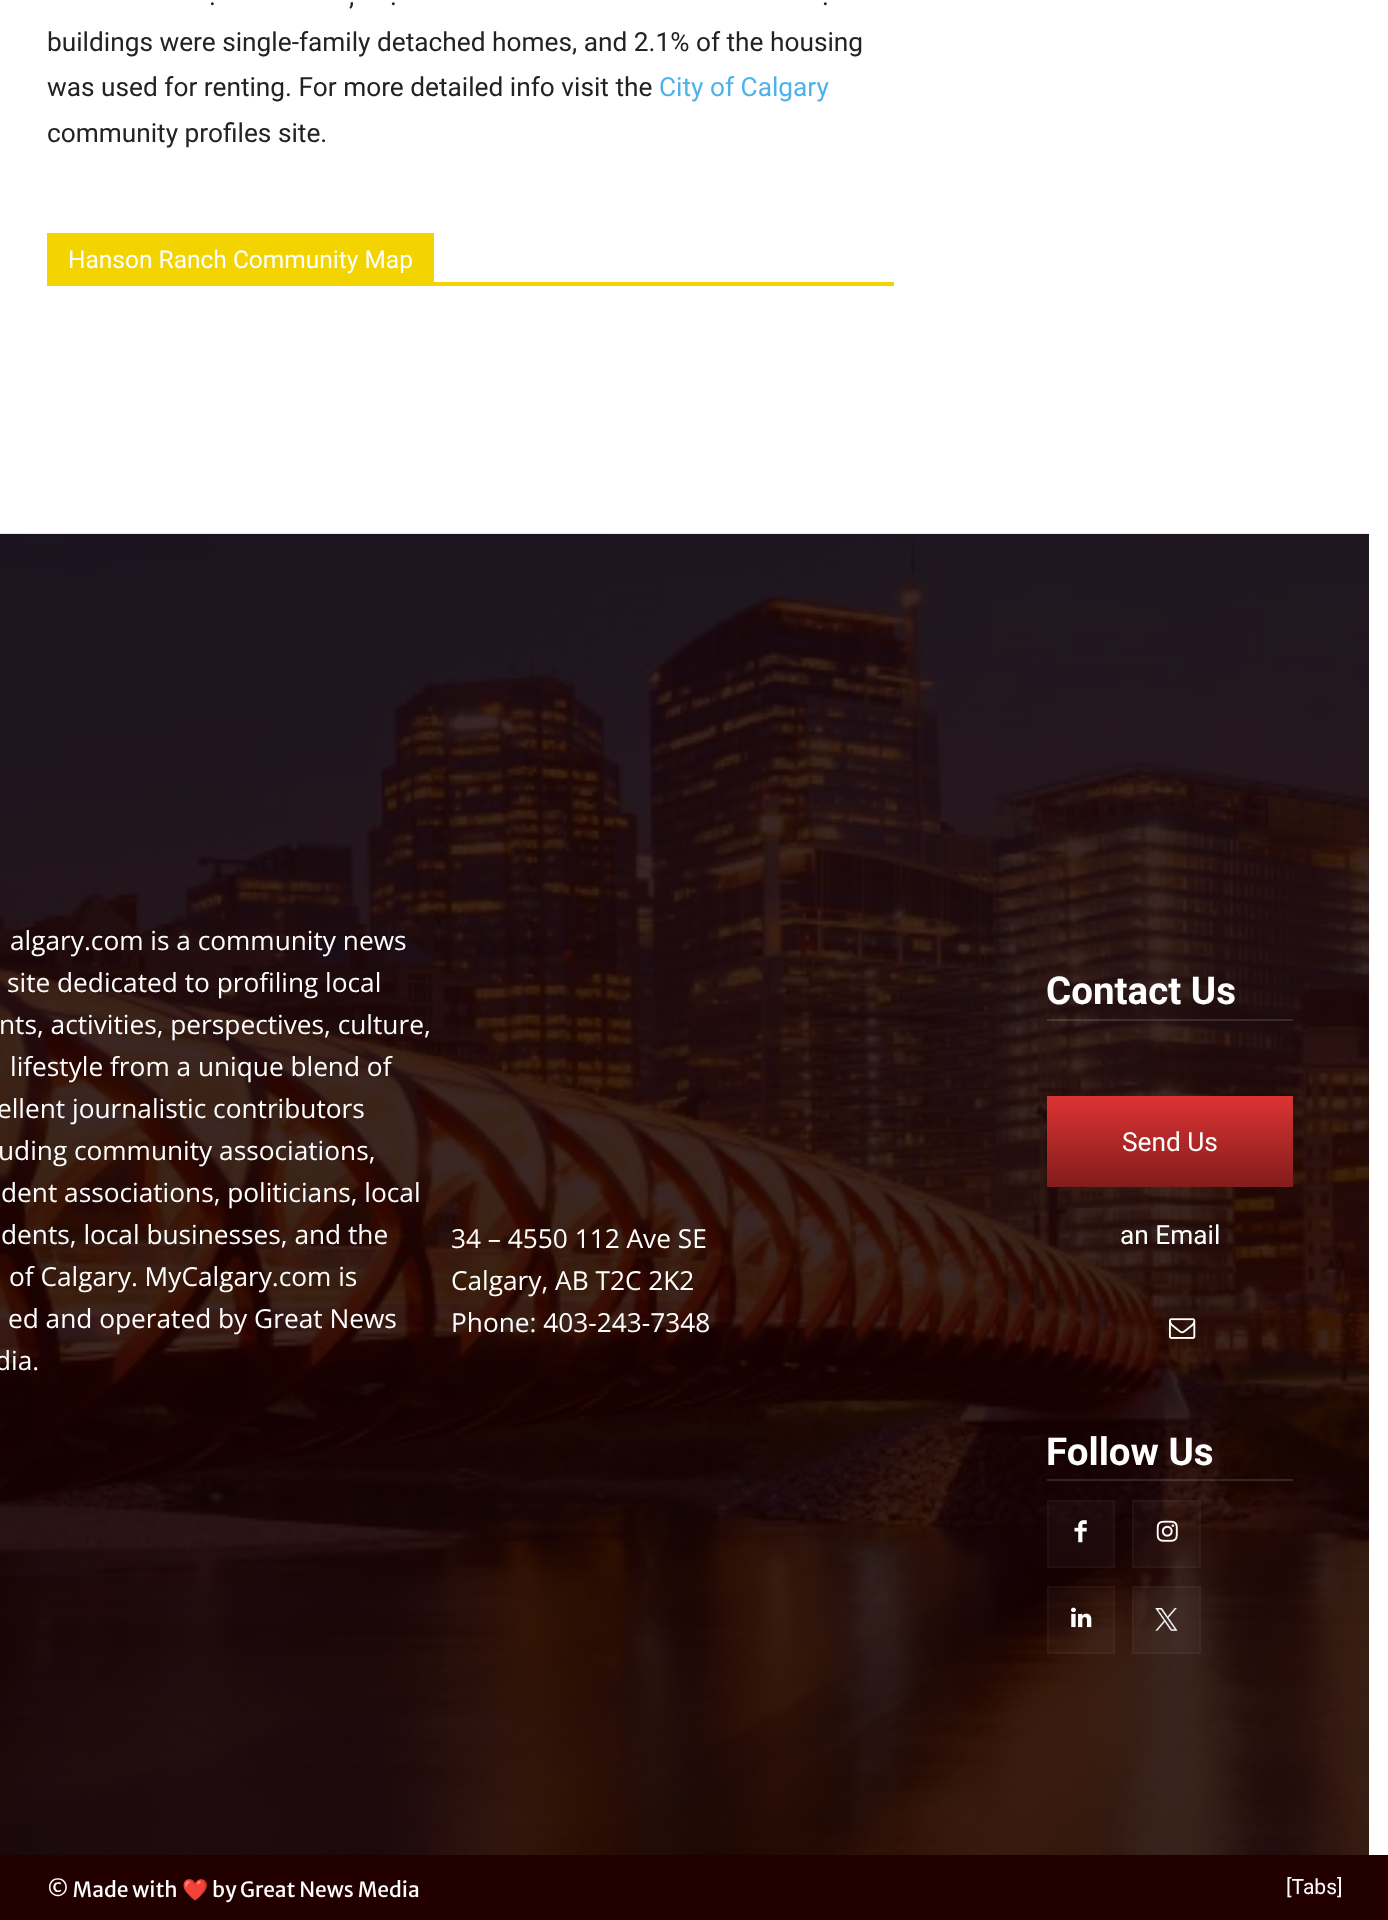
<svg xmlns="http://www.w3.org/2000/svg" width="1388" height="1920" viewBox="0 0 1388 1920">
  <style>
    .t1 { font: 26.25px Roboto; fill: #222; }
    .t2 { font: 26.25px Roboto; fill: #4db2ec; }
    .t3 { font: 24.5px Roboto; fill: #fff; }
    .t4 { font: 26.25px Open Sans; fill: #fff; }
    .t5 { font: bold 38.5px Roboto; fill: #fff; }
    .t6 { font: 26.25px Roboto; fill: #fff; }
    .t7 { font: 21px Merriweather Sans; fill: #fff; }
    .t8 { font: 21px Noto Color Emoji; fill: #fff; }
    .t9 { font: 21px Roboto; fill: #fff; }
  </style>
  <defs>
    <linearGradient id="g1" gradientUnits="userSpaceOnUse" x1="1170" y1="1187" x2="1170" y2="1096"><stop offset="0" stop-color="#821c1c"/><stop offset="1" stop-color="#d33"/></linearGradient>
  </defs>
  <rect width="100%" height="100%" fill="#fff"/>
  <text x="209" y="5" class="t1">.</text>
  <text x="349" y="5" class="t1">,</text>
  <text x="390" y="5" class="t1">.</text>
  <text x="822" y="5" class="t1">.</text>
  <text x="47" y="51" class="t1">buildings were single-family detached homes, and 2.1% of the housing</text>
  <text x="47" y="96" class="t1">was used for renting. For more detailed info visit the</text>
  <text x="659" y="96" class="t2">City of Calgary</text>
  <text x="47" y="142" class="t1">community profiles site.</text>
  <rect x="47" y="282" width="847" height="4" fill="#f4d400"/>
  <rect x="47" y="233" width="387" height="49" fill="#f4d400"/>
  <text x="68" y="268" class="t3">Hanson Ranch Community Map</text>
  <rect x="0" y="534" width="1369" height="1321" fill="#190101"/>
  <image x="0" y="533" width="1369" height="1322" href="images/1.png"/>
  <text x="10" y="950" class="t4">algary.com is a community news</text>
  <text x="7" y="992" class="t4">site dedicated to profiling local</text>
  <text x="-1" y="1034" class="t4">nts, activities, perspectives, culture,</text>
  <text x="10" y="1076" class="t4">lifestyle from a unique blend of</text>
  <text x="-3" y="1118" class="t4">ellent journalistic contributors</text>
  <text x="-2" y="1160" class="t4">uding community associations,</text>
  <text x="1" y="1202" class="t4">dent associations, politicians, local</text>
  <text x="1" y="1244" class="t4">dents, local businesses, and the</text>
  <text x="9" y="1286" class="t4">of Calgary. MyCalgary.com is</text>
  <text x="8" y="1328" class="t4">ed and operated by Great News</text>
  <text x="-5" y="1370" class="t4">dia.</text>
  <text x="451" y="1248" class="t4">34 – 4550 112 Ave SE</text>
  <text x="451" y="1290" class="t4">Calgary, AB T2C 2K2</text>
  <text x="451" y="1332" class="t4">Phone: 403-243-7348</text>
  <text x="1046" y="1004" class="t5">Contact Us</text>
  <rect x="1047" y="1019" width="246" height="2" fill="#f2f2f224"/>
  <rect x="1047" y="1096" width="246" height="91" fill="url(#g1)"/>
  <text x="1122" y="1151" class="t6">Send Us</text>
  <text x="1120" y="1244" class="t6">an Email</text>
  <image x="1169" y="1318" width="27" height="21" href="images/2.png"/>
  <text x="1046" y="1465" class="t5">Follow Us</text>
  <rect x="1047" y="1479" width="246" height="2" fill="#f2f2f224"/>
  <rect x="1047" y="1500" width="68" height="68" fill="#ffffff08"/>
  <rect x="1048" y="1501" width="66" height="66" fill="none" stroke="#ffffff08" stroke-width="2"/>
  <image x="1074" y="1520" width="13" height="23" href="images/3.png"/>
  <rect x="1132" y="1500" width="69" height="68" fill="#ffffff08"/>
  <rect x="1133" y="1501" width="67" height="66" fill="none" stroke="#ffffff08" stroke-width="2"/>
  <image x="1156" y="1520" width="22" height="22" href="images/4.png"/>
  <rect x="1047" y="1586" width="68" height="68" fill="#ffffff08"/>
  <rect x="1048" y="1587" width="66" height="66" fill="none" stroke="#ffffff08" stroke-width="2"/>
  <image x="1071" y="1607" width="21" height="21" href="images/5.png"/>
  <rect x="1132" y="1586" width="69" height="68" fill="#ffffff08"/>
  <rect x="1133" y="1587" width="67" height="66" fill="none" stroke="#ffffff08" stroke-width="2"/>
  <image x="1155" y="1608" width="23" height="23" href="images/6.png"/>
  <rect x="0" y="1855" width="1388" height="65" fill="#230000"/>
  <text x="47" y="1897" class="t7">© Made with</text>
  <text x="182" y="1897" class="t8">❤️</text>
  <text x="212" y="1897" class="t7">by Great News Media</text>
  <text x="1286" y="1894" class="t9">[Tabs]</text>
</svg>
